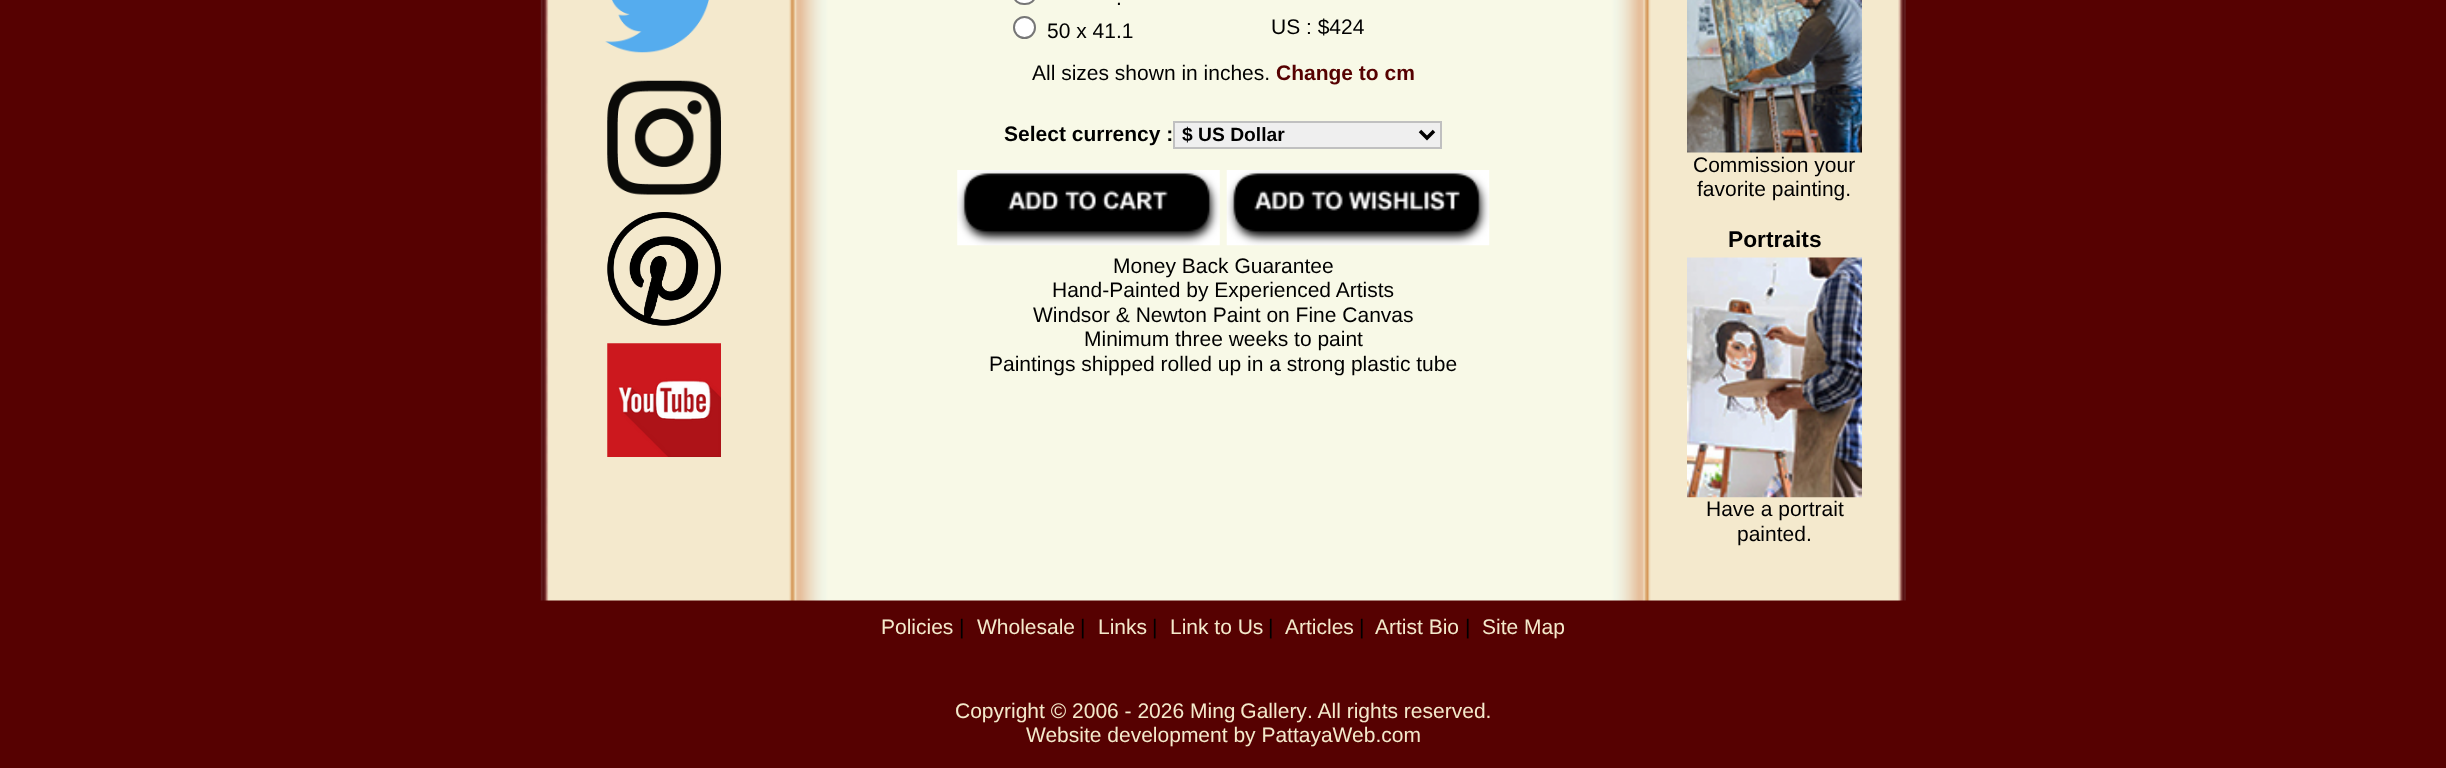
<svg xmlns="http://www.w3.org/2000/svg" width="2446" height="768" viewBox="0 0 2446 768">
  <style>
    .t1 { font: 21px Liberation Sans; fill: #000; }
    .t2 { font: bold 21px Liberation Sans; fill: #560101; }
    .t3 { font: bold 21px Liberation Sans; fill: #000; }
    .t4 { font: bold 19.25px Liberation Sans; fill: #000; }
    .t5 { font: bold 22.75px Liberation Sans; fill: #000; }
    .t6 { font: 21px Liberation Sans; fill: #f4e9cb; }
  </style>
  <rect width="100%" height="100%" fill="#560101"/>
  <image x="540" y="0" width="1366" height="601" href="images/1.png"/>
  <image x="605" y="0" width="104" height="53" href="images/2.png"/>
  <image x="607" y="80" width="114" height="115" href="images/3.png"/>
  <image x="607" y="212" width="114" height="114" href="images/4.png"/>
  <image x="607" y="343" width="114" height="114" href="images/5.png"/>
  <rect x="1014" y="-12" width="21" height="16" rx="10" fill="#fff" stroke="#767676" stroke-width="2"/>
  <text x="1116" y="5" class="t1">.</text>
  <circle cx="1024.5" cy="27.5" r="10.5" fill="#fff" stroke="#767676" stroke-width="2"/>
  <text x="1047" y="38" class="t1">50 x 41.1</text>
  <text x="1271" y="34" class="t1">US : $424</text>
  <text x="1032" y="80" class="t1">All sizes shown in inches.</text>
  <text x="1276" y="80" class="t2">Change to cm</text>
  <text x="1004" y="141" class="t3">Select currency :</text>
  <rect x="1174" y="122" width="267" height="26" fill="#efefef" stroke="#c0c0c0" stroke-width="2"/>
  <path d="M1420 131L1427 138L1434 131" fill="none" stroke="#000" stroke-width="3.5"/>
  <text x="1182" y="141" class="t4">$ US Dollar</text>
  <image x="957" y="170" width="263" height="76" href="images/6.png"/>
  <image x="1226" y="170" width="264" height="76" href="images/7.png"/>
  <text x="1113" y="273" class="t1">Money Back Guarantee</text>
  <text x="1052" y="297" class="t1">Hand-Painted by Experienced Artists</text>
  <text x="1033" y="322" class="t1">Windsor &amp; Newton Paint on Fine Canvas</text>
  <text x="1084" y="346" class="t1">Minimum three weeks to paint</text>
  <text x="989" y="371" class="t1">Paintings shipped rolled up in a strong plastic tube</text>
  <image x="1687" y="0" width="175" height="153" href="images/8.png"/>
  <text x="1693" y="172" class="t1">Commission your</text>
  <text x="1697" y="196" class="t1">favorite painting.</text>
  <text x="1728" y="247" class="t5">Portraits</text>
  <image x="1687" y="257" width="175" height="241" href="images/9.png"/>
  <text x="1706" y="516" class="t1">Have a portrait</text>
  <text x="1737" y="541" class="t1">painted.</text>
  <text x="881" y="634" class="t6">Policies</text>
  <text x="959" y="634" class="t1">|</text>
  <text x="977" y="634" class="t6">Wholesale</text>
  <text x="1080" y="634" class="t1">|</text>
  <text x="1098" y="634" class="t6">Links</text>
  <text x="1152" y="634" class="t1">|</text>
  <text x="1170" y="634" class="t6">Link to Us</text>
  <text x="1268" y="634" class="t1">|</text>
  <text x="1285" y="634" class="t6">Articles</text>
  <text x="1359" y="634" class="t1">|</text>
  <text x="1375" y="634" class="t6">Artist Bio</text>
  <text x="1465" y="634" class="t1">|</text>
  <text x="1482" y="634" class="t6">Site Map</text>
  <text x="955" y="718" class="t6">Copyright © 2006 - 2026</text>
  <text x="1190" y="718" word-spacing="-1" class="t6">Ming Gallery</text>
  <text x="1307" y="718" class="t6">. All rights reserved.</text>
  <text x="1026" y="742" class="t6">Website development by PattayaWeb.com</text>
</svg>
